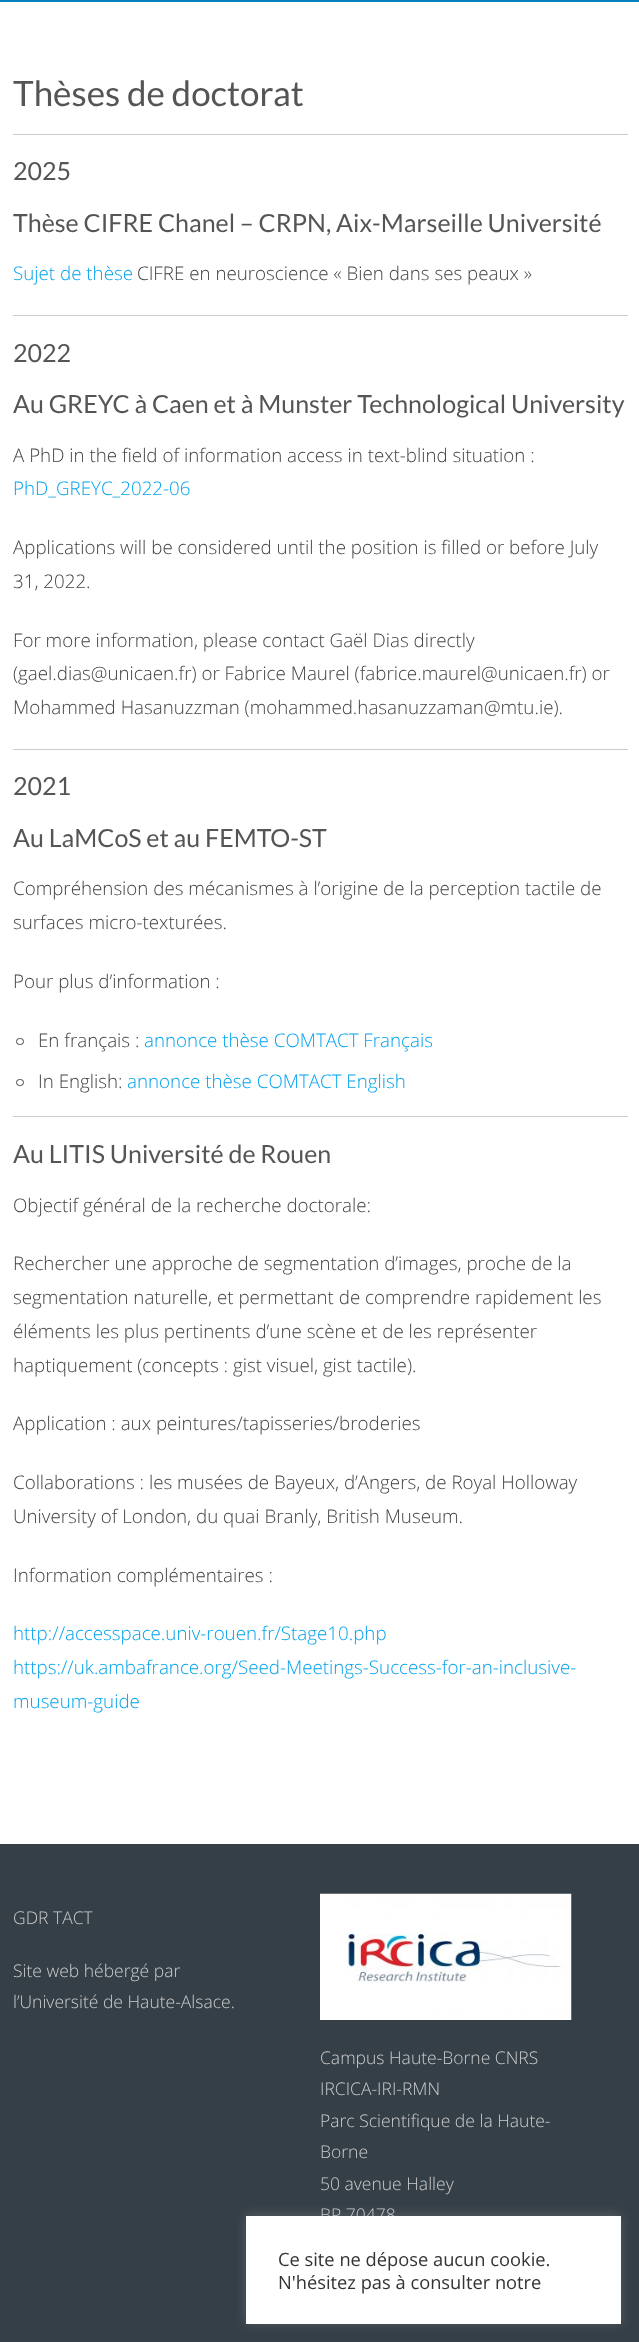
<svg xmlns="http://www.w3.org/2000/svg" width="639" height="2342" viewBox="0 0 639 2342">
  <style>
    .t1 { font: 35px Lato; fill: #555; }
    .t2 { font: 25px Lato; fill: #555; }
    .t3 { font: 300 18.75px Open Sans; fill: #04a3ed; }
    .t4 { font: 300 18.75px Open Sans; fill: #444; }
    .t5 { font: 300 17.5px Open Sans; fill: #ccc; }
    .t6 { font: 18.3px Open Sans; fill: #333; }
  </style>
  <rect width="100%" height="100%" fill="#fff"/>
  <rect x="0" y="0" width="639" height="2" fill="#0382be"/>
  <text x="13" y="106" class="t1">Thèses de doctorat</text>
  <rect x="13" y="134" width="615" height="1" fill="#ccc"/>
  <text x="13" y="180" class="t2">2025</text>
  <text x="13" y="232" class="t2">Thèse CIFRE Chanel – CRPN, Aix-Marseille Université</text>
  <text x="13" y="280" class="t3">Sujet de thèse</text>
  <text x="137" y="280" class="t4">CIFRE en neuroscience « Bien dans ses peaux »</text>
  <rect x="13" y="315" width="615" height="1" fill="#ccc"/>
  <text x="13" y="362" class="t2">2022</text>
  <text x="13" y="413" class="t2">Au GREYC à Caen et à Munster Technological University</text>
  <text x="13" y="462" class="t4">A PhD in the field of information access in text-blind situation :</text>
  <text x="13" y="495" class="t3">PhD_GREYC_2022-06</text>
  <text x="13" y="554" class="t4">Applications will be considered until the position is filled or before July</text>
  <text x="13" y="588" class="t4">31, 2022.</text>
  <text x="13" y="647" class="t4">For more information, please contact Gaël Dias directly</text>
  <text x="13" y="680" class="t4">(gael.dias@unicaen.fr) or Fabrice Maurel (fabrice.maurel@unicaen.fr) or</text>
  <text x="13" y="714" class="t4">Mohammed Hasanuzzman (mohammed.hasanuzzaman@mtu.ie).</text>
  <rect x="13" y="749" width="615" height="1" fill="#ccc"/>
  <text x="13" y="795" class="t2">2021</text>
  <text x="13" y="847" class="t2">Au LaMCoS et au FEMTO-ST</text>
  <text x="13" y="895" class="t4">Compréhension des mécanismes à l’origine de la perception tactile de</text>
  <text x="13" y="929" class="t4">surfaces micro-texturées.</text>
  <text x="13" y="988" class="t4">Pour plus d’information :</text>
  <rect x="16.5" y="1038.5" width="7" height="6" rx="3" fill="none" stroke="#444"/>
  <text x="38" y="1047" class="t4">En français :</text>
  <text x="144" y="1047" class="t3">annonce thèse COMTACT Français</text>
  <rect x="16.5" y="1079.5" width="7" height="6" rx="3" fill="none" stroke="#444"/>
  <text x="38" y="1088" class="t4">In English:</text>
  <text x="127" y="1088" class="t3">annonce thèse COMTACT English</text>
  <rect x="13" y="1116" width="615" height="1" fill="#ccc"/>
  <text x="13" y="1163" class="t2">Au LITIS Université de Rouen</text>
  <text x="13" y="1212" class="t4">Objectif général de la recherche doctorale:</text>
  <text x="13" y="1270" class="t4">Rechercher une approche de segmentation d’images, proche de la</text>
  <text x="13" y="1304" class="t4">segmentation naturelle, et permettant de comprendre rapidement les</text>
  <text x="13" y="1338" class="t4">éléments les plus pertinents d’une scène et de les représenter</text>
  <text x="13" y="1372" class="t4">haptiquement (concepts : gist visuel, gist tactile).</text>
  <text x="13" y="1430" class="t4">Application : aux peintures/tapisseries/broderies</text>
  <text x="13" y="1489" class="t4">Collaborations : les musées de Bayeux, d’Angers, de Royal Holloway</text>
  <text x="13" y="1523" class="t4">University of London, du quai Branly, British Museum.</text>
  <text x="13" y="1582" class="t4">Information complémentaires :</text>
  <text x="13" y="1640" class="t3">http://accesspace.univ-rouen.fr/Stage10.php</text>
  <text x="13" y="1674" class="t3">https://uk.ambafrance.org/Seed-Meetings-Success-for-an-inclusive-</text>
  <text x="13" y="1708" class="t3">museum-guide</text>
  <rect x="0" y="1844" width="639" height="498" fill="#353f47"/>
  <text x="13" y="1924" class="t5">GDR TACT</text>
  <text x="13" y="1977" class="t5">Site web hébergé par</text>
  <text x="13" y="2008" class="t5">l’Université de Haute-Alsace.</text>
  <image x="320" y="1893" width="252" height="127" href="images/1.png"/>
  <text x="320" y="2064" class="t5">Campus Haute-Borne CNRS</text>
  <text x="320" y="2095" class="t5">IRCICA-IRI-RMN</text>
  <text x="320" y="2127" class="t5">Parc Scientifique de la Haute-</text>
  <text x="320" y="2158" class="t5">Borne</text>
  <text x="320" y="2190" class="t5">50 avenue Halley</text>
  <text x="320" y="2221" class="t5">BP 70478</text>
  <rect x="246" y="2215" width="375" height="108" fill="#acabab4d" filter="blur(6px)"/>
  <rect x="246" y="2216" width="375" height="108" fill="#fff"/>
  <text x="278" y="2266" class="t6">Ce site ne dépose aucun cookie.</text>
  <text x="278" y="2289" class="t6">N'hésitez pas à consulter notre</text>
</svg>
